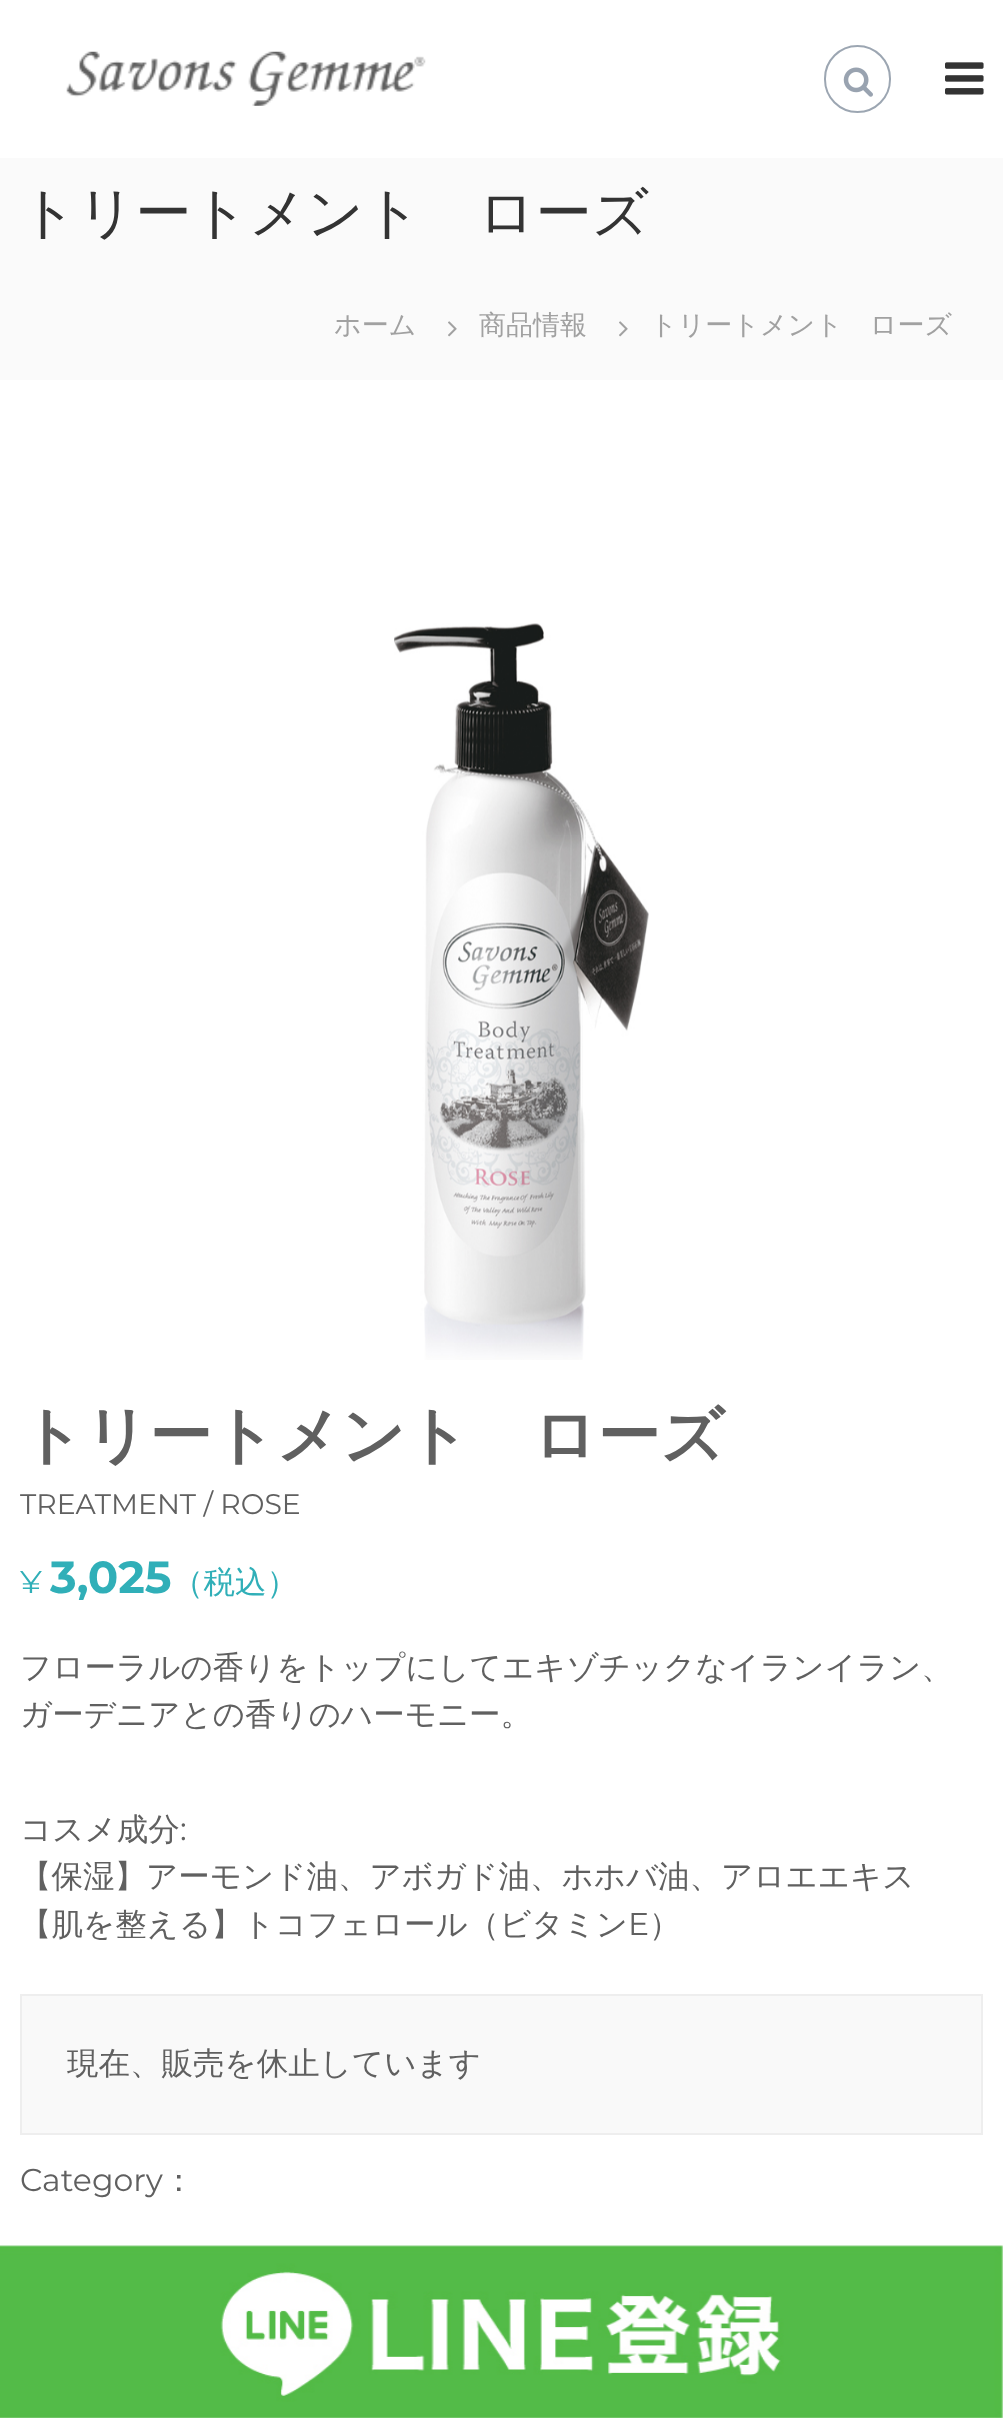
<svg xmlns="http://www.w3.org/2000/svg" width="1003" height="2418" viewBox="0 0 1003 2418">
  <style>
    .t1 { font: 500 56.25px WenQuanYi Zen Hei; fill: #333; }
    .t2 { font: 500 27px WenQuanYi Zen Hei; fill: #a1a1a1; }
    .t3 { font: bold 63px WenQuanYi Zen Hei; fill: #606060; }
    .t4 { font: 28.25px Montserrat; fill: #606060; }
    .t5 { font: 31.5px Montserrat; fill: #30afb8; }
    .t6 { font: bold 45px Montserrat; fill: #30afb8; }
    .t7 { font: 500 31.5px WenQuanYi Zen Hei; fill: #30afb8; }
    .t8 { font: 500 31.5px WenQuanYi Zen Hei; fill: #606060; }
    .t9 { font: 31.5px Montserrat; fill: #606060; }
  </style>
  <rect width="100%" height="100%" fill="#fff"/>
  <image x="66" y="51" width="360" height="55" href="images/1.png"/>
  <rect x="825" y="46" width="65" height="66" rx="32.5" fill="none" stroke="#9ca6b2" stroke-width="2"/>
  <image x="843" y="67" width="30" height="30" href="images/2.png"/>
  <image x="945" y="62" width="39" height="33" href="images/3.png"/>
  <rect x="0" y="158" width="1003" height="222" fill="#fafafa"/>
  <text x="20" y="232" class="t1">トリートメント　ローズ</text>
  <text x="334" y="334" class="t2">ホーム</text>
  <image x="448" y="321" width="9" height="16" href="images/4.png"/>
  <text x="479" y="334" class="t2">商品情報</text>
  <image x="619" y="321" width="9" height="16" href="images/4.png"/>
  <text x="650" y="334" class="t2">トリートメント　ローズ</text>
  <image x="394" y="623" width="255" height="737" href="images/5.png"/>
  <text x="20" y="1457" class="t3">トリートメント　ローズ</text>
  <text x="20" y="1514" class="t4">TREATMENT / ROSE</text>
  <text x="20" y="1593" class="t5">¥</text>
  <text x="50" y="1593" class="t6">3,025</text>
  <text x="172" y="1593" class="t7">（税込）</text>
  <text x="20" y="1678" class="t8">フローラルの香りをトップにしてエキゾチックなイランイラン、</text>
  <text x="20" y="1725" class="t8">ガーデニアとの香りのハーモニー。</text>
  <text x="20" y="1840" class="t8">コスメ成分</text>
  <text x="180" y="1840" class="t9">:</text>
  <text x="20" y="1887" class="t8">【保湿】アーモンド油、アボガド油、ホホバ油、アロエエキス</text>
  <text x="20" y="1935" class="t8">【肌を整える】トコフェロール（ビタミン</text>
  <text x="628" y="1935" class="t9">E</text>
  <text x="649" y="1935" class="t8">）</text>
  <rect x="21" y="1995" width="961" height="139" fill="#f9f9f9" stroke="#eee" stroke-width="2"/>
  <text x="67" y="2074" class="t8">現在、販売を休止しています</text>
  <text x="20" y="2191" class="t9">Category</text>
  <text x="163" y="2191" class="t8">：</text>
  <image x="0" y="2245" width="1003" height="173" href="images/6.png"/>
</svg>
